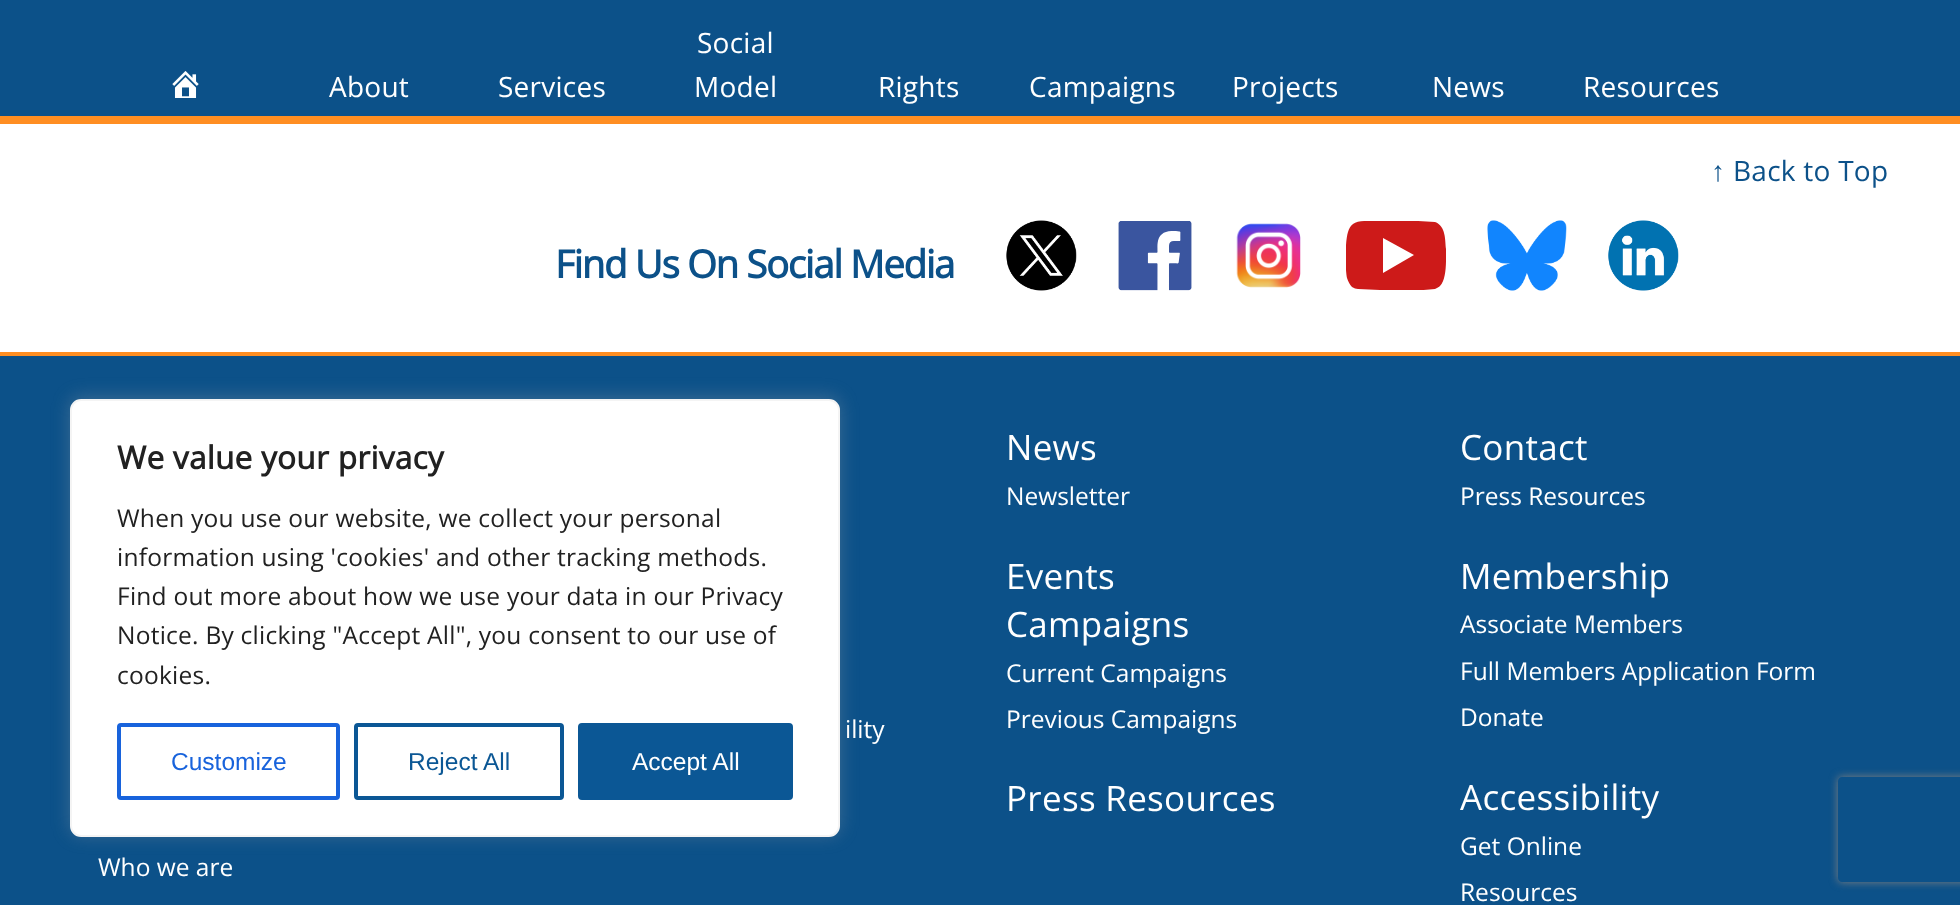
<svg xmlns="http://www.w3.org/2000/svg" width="1960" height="905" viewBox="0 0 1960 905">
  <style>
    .t1 { font: 28px Open Sans; letter-spacing: 0.25px; fill: #fff; }
    .t2 { font: 28px Liberation Sans; letter-spacing: 0.25px; fill: #0c5189; }
    .t3 { font: 28px Open Sans; letter-spacing: 0.25px; fill: #0c5189; }
    .t4 { font: bold 38.5px Open Sans; letter-spacing: -1.4px; fill: #0c5189; }
    .t5 { font: 24.5px Open Sans; fill: #fff; }
    .t6 { font: 35px Open Sans; letter-spacing: 0.3px; fill: #fff; }
    .t7 { font: bold 31.5px Open Sans; letter-spacing: 0.3px; fill: #212121; }
    .t8 { font: 24.5px Open Sans; letter-spacing: 0.25px; fill: #212121; }
    .t9 { font: 24.5px Liberation Sans; fill: #1863dc; }
    .t10 { font: 24.5px Liberation Sans; fill: #0b5795; }
    .t11 { font: 24.5px Liberation Sans; fill: #fff; }
  </style>
  <defs>
    <clipPath id="clip1"><rect x="1346" y="221" width="100" height="70"/></clipPath>
    <clipPath id="clip2"><path d="M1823 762H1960V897H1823ZM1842 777H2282C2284 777 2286 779 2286 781V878C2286 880 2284 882 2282 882H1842C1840 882 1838 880 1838 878V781C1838 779 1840 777 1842 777Z" clip-rule="evenodd"/></clipPath>
  </defs>
  <rect width="100%" height="100%" fill="#fff"/>
  <rect x="0" y="0" width="1960" height="116" fill="#0c5189"/>
  <rect x="0" y="116" width="1960" height="8" fill="#ff8e22"/>
  <image x="172" y="71" width="27" height="27" href="images/1.png"/>
  <text x="329" y="97" class="t1">About</text>
  <text x="498" y="97" class="t1">Services</text>
  <text x="697" y="53" class="t1">Social</text>
  <text x="694" y="97" class="t1">Model</text>
  <text x="878" y="97" class="t1">Rights</text>
  <text x="1029" y="97" class="t1">Campaigns</text>
  <text x="1232" y="97" class="t1">Projects</text>
  <text x="1432" y="97" class="t1">News</text>
  <text x="1583" y="97" class="t1">Resources</text>
  <text x="1711" y="181" class="t2">↑</text>
  <text x="1733" y="181" class="t3">Back to Top</text>
  <text x="555" y="278" class="t4">Find Us On Social Media</text>
  <image x="1006" y="220" width="71" height="71" href="images/2.png"/>
  <image x="1118" y="221" width="74" height="70" href="images/3.png"/>
  <image x="1236" y="223" width="65" height="65" href="images/4.png"/>
  <g clip-path="url(#clip1)">
    <path d="M1414 255L1383 238V273L1414 255M1446 249C1446 259 1447 279 1440 286C1439 287 1437 288 1435 289C1428 290 1419 290 1412 290H1380L1358 289C1356 289 1354 288 1352 287C1350 285 1348 281 1347 278C1345 269 1345 241 1348 232C1349 229 1350 226 1353 224C1358 220 1370 221 1377 221C1390 220 1404 220 1418 221L1435 222C1446 226 1445 240 1446 249" fill="#cd1a19" fill-rule="evenodd"/>
  </g>
  <image x="1487" y="220" width="80" height="71" href="images/5.png"/>
  <image x="1608" y="220" width="71" height="71" href="images/6.png"/>
  <rect x="0" y="356" width="1960" height="549" fill="#0c5189"/>
  <rect x="0" y="352" width="1960" height="4" fill="#ff8e22"/>
  <text x="845" y="738" class="t5">ility</text>
  <text x="1006" y="460" class="t6">News</text>
  <text x="1006" y="505" class="t5">Newsletter</text>
  <text x="1006" y="589" class="t6">Events</text>
  <text x="1006" y="637" class="t6">Campaigns</text>
  <text x="1006" y="682" class="t5">Current Campaigns</text>
  <text x="1006" y="728" class="t5">Previous Campaigns</text>
  <text x="1006" y="811" class="t6">Press Resources</text>
  <text x="1460" y="460" class="t6">Contact</text>
  <text x="1460" y="505" class="t5">Press Resources</text>
  <text x="1460" y="589" class="t6">Membership</text>
  <text x="1460" y="633" class="t5">Associate Members</text>
  <text x="1460" y="680" class="t5">Full Members Application Form</text>
  <text x="1460" y="726" class="t5">Donate</text>
  <text x="1460" y="810" class="t6">Accessibility</text>
  <text x="1460" y="855" class="t5">Get Online</text>
  <text x="1460" y="901" class="t5">Resources</text>
  <text x="98" y="876" class="t5">Who we are</text>
  <rect x="70" y="397" width="770" height="438" rx="11" fill="#acabab4d" filter="blur(9px)"/>
  <rect x="71" y="400" width="768" height="436" rx="10" fill="#fff" stroke="#f4f4f4" stroke-width="2"/>
  <text x="117" y="469" class="t7">We value your privacy</text>
  <text x="117" y="527" class="t8">When you use our website, we collect your personal</text>
  <text x="117" y="566" class="t8">information using 'cookies' and other tracking methods.</text>
  <text x="117" y="605" class="t8">Find out more about how we use your data in our Privacy</text>
  <text x="117" y="644" class="t8">Notice. By clicking "Accept All", you consent to our use of</text>
  <text x="117" y="684" class="t8">cookies.</text>
  <rect x="119" y="725" width="219" height="73" rx="2" fill="none" stroke="#1863dc" stroke-width="4"/>
  <text x="171" y="770" class="t9">Customize</text>
  <rect x="356" y="725" width="206" height="73" rx="2" fill="none" stroke="#0b5795" stroke-width="4"/>
  <text x="408" y="770" class="t10">Reject All</text>
  <rect x="580" y="725" width="211" height="73" rx="2" fill="#0b5795" stroke="#0b5795" stroke-width="4"/>
  <text x="632" y="770" class="t11">Accept All</text>
  <g clip-path="url(#clip2)">
    <rect x="1838" y="777" width="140" height="105" rx="4" fill="#808080" filter="blur(4.5px)"/>
  </g>
</svg>
